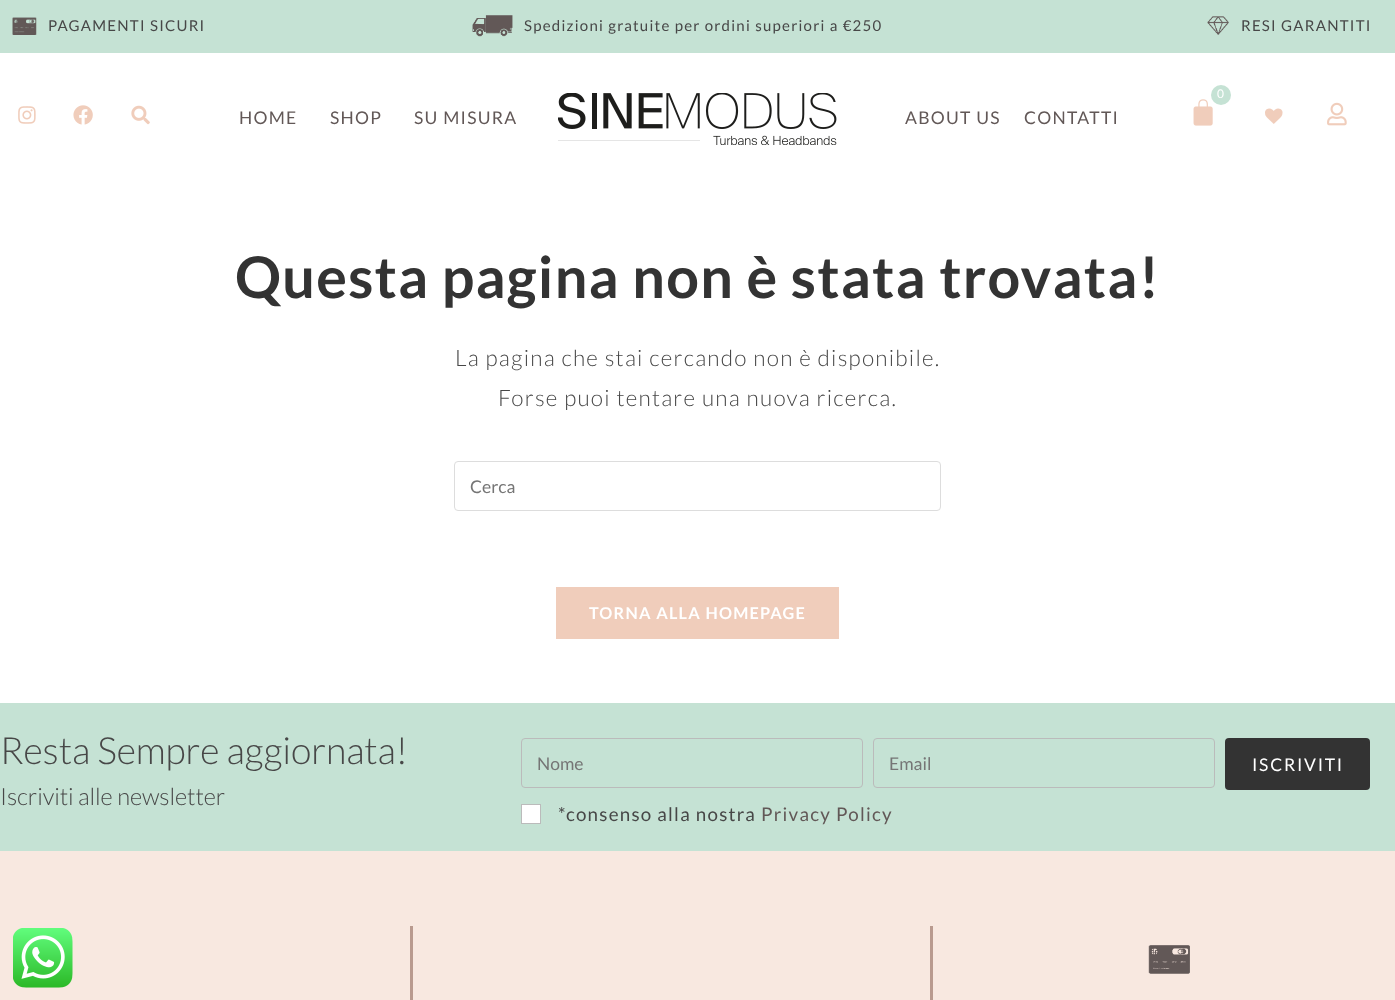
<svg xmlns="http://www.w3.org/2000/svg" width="1395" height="1000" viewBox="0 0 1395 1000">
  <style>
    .t1 { font: 15px Lato; letter-spacing: 1.25px; fill: #474747; }
    .t2 { font: 17.5px Lato; letter-spacing: 1.25px; fill: #625857; }
    .t3 { font: 12px Lato; letter-spacing: 1.25px; fill: #fff; }
    .t4 { font: bold 57.5px Lato; letter-spacing: 1.25px; fill: #333; }
    .t5 { font: 300 22.5px Lato; letter-spacing: 1.25px; fill: #474747; }
    .t6 { font: 17.5px Lato; fill: #757575; }
    .t7 { font: bold 16.25px Lato; letter-spacing: 1.25px; fill: #fff; }
    .t8 { font: 300 37.5px Lato; letter-spacing: -0.1px; fill: #474747; }
    .t9 { font: 300 23.75px Lato; letter-spacing: -0.1px; fill: #474747; }
    .t10 { font: 17.5px Lato; letter-spacing: 1.75px; fill: #fff; }
    .t11 { font: 18.75px Lato; letter-spacing: 1.25px; fill: #474747; }
    .t12 { font: 18.75px Lato; letter-spacing: 1.25px; fill: #625857; }
  </style>
  <rect width="100%" height="100%" fill="#fff"/>
  <rect x="0" y="0" width="1395" height="53" fill="#c5e2d4"/>
  <image x="12" y="17" width="25" height="18" href="images/1.png"/>
  <text x="48" y="31" class="t1">PAGAMENTI SICURI</text>
  <image x="472" y="15" width="41" height="22" href="images/2.png"/>
  <text x="524" y="31" class="t1">Spedizioni gratuite per ordini superiori a €250</text>
  <image x="1207" y="16" width="22" height="19" href="images/3.png"/>
  <text x="1241" y="31" class="t1">RESI GARANTITI</text>
  <image x="18" y="106" width="18" height="18" href="images/4.png"/>
  <image x="73" y="105" width="20" height="20" href="images/5.png"/>
  <image x="131" y="105" width="19" height="20" href="images/6.png"/>
  <text x="239" y="124" class="t2">HOME</text>
  <text x="330" y="124" class="t2">SHOP</text>
  <text x="414" y="124" class="t2">SU MISURA</text>
  <image x="558" y="93" width="279" height="52" href="images/7.png"/>
  <image x="1193" y="99" width="20" height="27" href="images/8.png"/>
  <circle cx="1221" cy="95" r="10" fill="#c5e2d4"/>
  <text x="1217" y="98" class="t3">0</text>
  <text x="905" y="124" class="t2">ABOUT US</text>
  <text x="1024" y="124" class="t2">CONTATTI</text>
  <image x="1265" y="108" width="18" height="16" href="images/9.png"/>
  <image x="1327" y="102" width="20" height="24" href="images/10.png"/>
  <text x="235" y="298" class="t4">Questa pagina non è stata trovata!</text>
  <text x="455" y="366" class="t5">La pagina che stai cercando non è disponibile.</text>
  <text x="498" y="406" class="t5">Forse puoi tentare una nuova ricerca.</text>
  <rect x="454.5" y="461.5" width="486" height="49" rx="3.5" fill="none" stroke="#ddd"/>
  <text x="470" y="493" class="t6">Cerca</text>
  <rect x="556" y="587" width="283" height="52" fill="#f0cdbb"/>
  <text x="589" y="619" class="t7">TORNA ALLA HOMEPAGE</text>
  <rect x="0" y="703" width="1395" height="148" fill="#c5e2d4"/>
  <text x="0" y="764" class="t8">Resta Sempre aggiornata!</text>
  <text x="0" y="805" class="t9">Iscriviti alle newsletter</text>
  <rect x="521.5" y="738.5" width="341" height="49" rx="3.5" fill="none" stroke="#bbb"/>
  <text x="537" y="770" class="t6">Nome</text>
  <rect x="873.5" y="738.5" width="341" height="49" rx="3.5" fill="none" stroke="#bbb"/>
  <text x="889" y="770" class="t6">Email</text>
  <rect x="1225" y="738" width="145" height="52" rx="4" fill="#333"/>
  <text x="1252" y="771" class="t10">ISCRIVITI</text>
  <rect x="521.5" y="804.5" width="19" height="19" fill="#fff" stroke="#bbb"/>
  <text x="558" y="821" class="t11">*consenso alla nostra</text>
  <text x="761" y="821" class="t12">Privacy Policy</text>
  <rect x="0" y="851" width="1395" height="149" fill="#f8e8e0"/>
  <rect x="410" y="926" width="3" height="74" fill="#b99a8f"/>
  <rect x="930" y="926" width="3" height="74" fill="#b99a8f"/>
  <image x="1148" y="945" width="42" height="29" href="images/11.png"/>
  <image x="13" y="928" width="60" height="60" href="images/12.png"/>
</svg>
